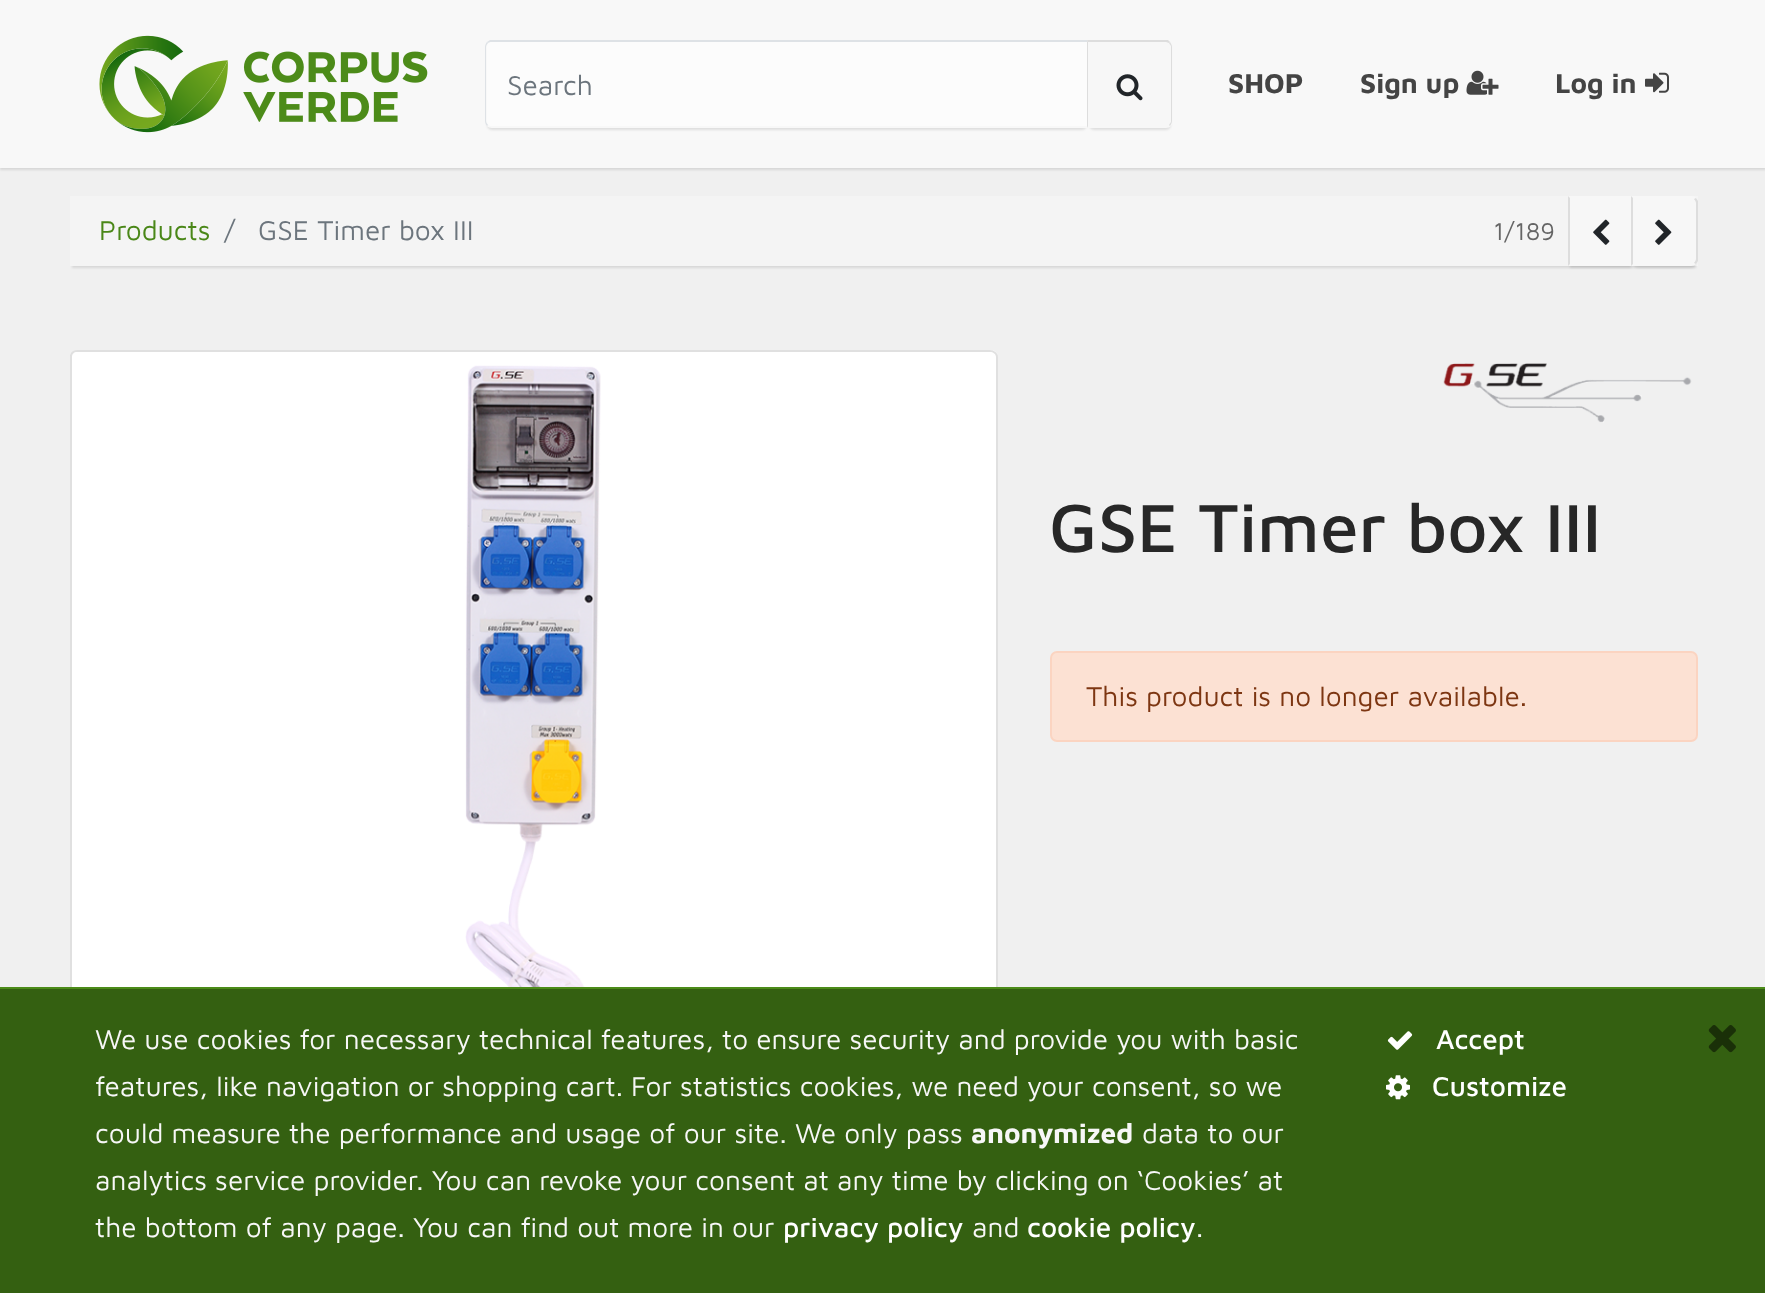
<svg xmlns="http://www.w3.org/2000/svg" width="1765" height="1293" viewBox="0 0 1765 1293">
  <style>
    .t1 { font: 28px Maven Pro; fill: #6c757d; }
    .t2 { font: bold 28px Maven Pro; fill: #444; }
    .t3 { font: 28px Maven Pro; fill: #4a8718; }
    .t4 { font: 25px Maven Pro; fill: #656565; }
    .t5 { font: 500 70px Maven Pro; fill: #272727; }
    .t6 { font: 28px Maven Pro; fill: #7d3612; }
    .t7 { font: 28px Maven Pro; fill: #f7f7f7; }
    .t8 { font: bold 28px Maven Pro; fill: #f7f7f7; }
    .t9 { font: 500 28px Maven Pro; fill: #fff; }
  </style>
  <defs>
    <clipPath id="clip1"><path d="M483 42H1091V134H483ZM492 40H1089V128H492C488 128 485 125 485 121V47C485 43 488 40 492 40Z" clip-rule="evenodd"/></clipPath>
  </defs>
  <rect width="100%" height="100%" fill="#f0f0f0"/>
  <rect x="0" y="2" width="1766" height="168" fill="#0000001a" filter="blur(1px)"/>
  <rect x="0" y="0" width="1765" height="168" fill="#f8f8f8"/>
  <image x="99" y="35" width="329" height="98" href="images/1.png"/>
  <g clip-path="url(#clip1)">
    <rect x="487" y="46" width="600" height="84" rx="5" fill="#0000001a" filter="blur(1px)"/>
  </g>
  <path d="M492 42H1087V126H492C489 126 487 124 487 121V47C487 44 489 42 492 42Z" fill="#fcfcfc"/>
  <path d="M492 42C490 42 489 42 488 43L487 42L490 40H1088L1087 42Z" fill="#dee2e6"/>
  <path d="M487 126C486 125 485 123 485 121V47C485 45 486 43 487 42L488 43C487 44 486 46 486 47V121C486 122 487 124 488 125Z" fill="#dee2e6"/>
  <text x="507" y="95" class="t1">Search</text>
  <rect x="1089" y="46" width="82" height="84" rx="5" fill="#0000001a" filter="blur(1px)"/>
  <path d="M1087 40H1166C1170 40 1173 43 1173 47V121C1173 125 1170 128 1166 128H1087Z" fill="#f7f7f7"/>
  <path d="M1087 40H1168L1170 42L1169 43L1166 42H1088Z" fill="#ddd"/>
  <path d="M1170 42C1171 44 1172 45 1172 47V121C1172 123 1171 124 1170 126L1169 125L1171 122V46L1169 43Z" fill="#ddd"/>
  <path d="M1088 42V126L1087 128V40Z" fill="#ddd"/>
  <image x="1116" y="74" width="27" height="27" href="images/2.png"/>
  <text x="1228" y="93" class="t2">SHOP</text>
  <text x="1360" y="93" class="t2">Sign up</text>
  <image x="1466" y="70" width="33" height="25" href="images/3.png"/>
  <text x="1555" y="93" class="t2">Log in</text>
  <image x="1645" y="72" width="24" height="21" href="images/4.png"/>
  <rect x="72" y="201" width="1624" height="67" fill="#0000001a" filter="blur(1px)"/>
  <rect x="70" y="196" width="1628" height="70" fill="#f4f4f4"/>
  <text x="99" y="240" class="t3">Products</text>
  <text x="224" y="240" class="t1">/</text>
  <text x="258" y="240" class="t1">GSE Timer box III</text>
  <text x="1493" y="240" class="t4">1/189</text>
  <rect x="1570" y="201" width="61" height="67" fill="#0000001a" filter="blur(1px)"/>
  <rect x="1568" y="196" width="63" height="70" fill="#f7f7f7"/>
  <path d="M1568 266V196L1570 198V264Z" fill="#ddd"/>
  <image x="1593" y="219" width="17" height="26" href="images/5.png"/>
  <rect x="1633" y="201" width="63" height="67" rx="5" fill="#0000001a" filter="blur(1px)"/>
  <path d="M1631 196H1691C1695 196 1698 199 1698 203V259C1698 263 1695 266 1691 266H1631Z" fill="#f7f7f7"/>
  <path d="M1698 261L1696 264L1694 263C1695 262 1696 260 1696 259V203C1696 202 1695 200 1694 199L1696 198L1698 201Z" fill="#ddd"/>
  <path d="M1633 198L1631 196V266L1633 264Z" fill="#ddd"/>
  <image x="1655" y="219" width="17" height="26" href="images/6.png"/>
  <rect x="70" y="350" width="928" height="702" rx="7" fill="#fff"/>
  <path d="M77 350H990C994 350 998 353 998 357V1045C998 1049 994 1052 990 1052H77C73 1052 70 1049 70 1045V357C70 353 73 350 77 350ZM77 352H990C993 352 996 354 996 357V1045C996 1049 993 1052 990 1052H77C74 1052 72 1049 72 1045V357C72 354 74 352 77 352Z" fill="#0000001f" fill-rule="evenodd"/>
  <image x="465" y="365" width="136" height="622" href="images/7.png"/>
  <image x="1443" y="363" width="249" height="60" href="images/8.png"/>
  <text x="1049" y="552" class="t5">GSE Timer box III</text>
  <rect x="1051" y="652" width="646" height="89" rx="6" fill="#fce1d3" stroke="#fbd4c1" stroke-width="2"/>
  <text x="1086" y="706" class="t6">This product is no longer available.</text>
  <rect x="0" y="989" width="1765" height="304" fill="#346011"/>
  <rect x="0" y="987" width="1765" height="2" fill="#4c8b19"/>
  <text x="95" y="1049" class="t7">We use cookies for necessary technical features, to ensure security and provide you with basic</text>
  <text x="95" y="1096" class="t7">features, like navigation or shopping cart. For statistics cookies, we need your consent, so we</text>
  <text x="95" y="1143" class="t7">could measure the performance and usage of our site. We only pass</text>
  <text x="971" y="1143" class="t8">anonymized</text>
  <text x="1142" y="1143" class="t7">data to our</text>
  <text x="95" y="1190" class="t7">analytics service provider. You can revoke your consent at any time by clicking on ‘Cookies’ at</text>
  <text x="95" y="1237" class="t7">the bottom of any page. You can find out more in our</text>
  <text x="783" y="1237" class="t9">privacy policy</text>
  <text x="972" y="1237" class="t7">and</text>
  <text x="1027" y="1237" class="t9">cookie policy</text>
  <text x="1196" y="1237" class="t7">.</text>
  <image x="1387" y="1031" width="26" height="19" href="images/9.png"/>
  <text x="1436" y="1049" class="t9">Accept</text>
  <image x="1386" y="1075" width="24" height="25" href="images/10.png"/>
  <text x="1432" y="1096" class="t9">Customize</text>
  <image x="1708" y="1025" width="28" height="28" href="images/11.png"/>
</svg>
